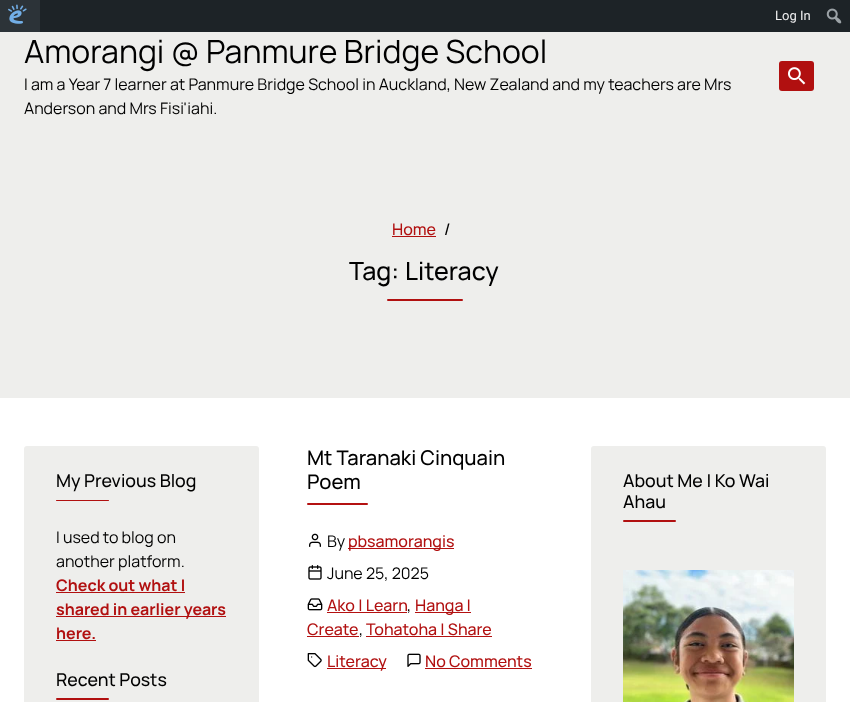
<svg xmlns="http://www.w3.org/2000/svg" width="850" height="702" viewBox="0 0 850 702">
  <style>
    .t1 { font: 13px Roboto; fill: #f0f0f1; }
    .t2 { font: 32px Manrope; fill: #000; }
    .t3 { font: 16px Manrope; fill: #000; }
    .t4 { font: 500 16px Manrope; fill: #b11010; }
    .t5 { font: 500 16px Manrope; fill: #000; }
    .t6 { font: 500 25px Manrope; fill: #000; }
    .t7 { font: 500 17.75px Manrope; fill: #000; }
    .t8 { font: bold 16px Manrope; fill: #b11010; }
    .t9 { font: 500 20.25px Manrope; fill: #000; }
  </style>
  <rect width="100%" height="100%" fill="#fff"/>
  <rect x="40" y="0" width="810" height="32" fill="#1d2327"/>
  <rect x="0" y="0" width="40" height="32" fill="#2c3338"/>
  <image x="8" y="4" width="19" height="20" href="images/1.png"/>
  <text x="775" y="20" class="t1">Log In</text>
  <image x="826" y="8" width="16" height="16" href="images/2.png"/>
  <rect x="0" y="32" width="850" height="366" fill="#eeeeec"/>
  <text x="24" y="63" class="t2">Amorangi @ Panmure Bridge School</text>
  <text x="24" y="90" class="t3">I am a Year 7 learner at Panmure Bridge School in Auckland, New Zealand and my teachers are Mrs</text>
  <text x="24" y="114" class="t3">Anderson and Mrs Fisi'iahi.</text>
  <rect x="779" y="61" width="35" height="30" rx="3" fill="#b11010"/>
  <image x="788" y="67" width="18" height="18" href="images/3.png"/>
  <text x="392" y="235" class="t4">Home</text>
  <rect x="392" y="236" width="44" height="1" fill="#b11010"/>
  <text x="444" y="235" class="t5">/</text>
  <text x="349" y="280" class="t6">Tag:</text>
  <text x="405" y="280" class="t6">Literacy</text>
  <rect x="387" y="299" width="76" height="2" rx="1" fill="#b11010"/>
  <rect x="24" y="446" width="235" height="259" rx="3" fill="#eeeeec"/>
  <text x="56" y="487" class="t7">My Previous Blog</text>
  <rect x="56" y="500" width="53" height="1" rx="0.5" fill="#b11010"/>
  <text x="56" y="543" class="t3">I used to blog on</text>
  <text x="56" y="567" class="t3">another platform.</text>
  <text x="56" y="591" class="t8">Check out what I</text>
  <rect x="56" y="592" width="129" height="1" fill="#b11010"/>
  <rect x="56" y="616" width="170" height="1" fill="#b11010"/>
  <text x="56" y="615" class="t8">shared in earlier years</text>
  <text x="56" y="639" class="t8">here.</text>
  <rect x="56" y="640" width="40" height="1" fill="#b11010"/>
  <text x="56" y="686" class="t7">Recent Posts</text>
  <rect x="56" y="698" width="53" height="2" rx="1" fill="#b11010"/>
  <text x="307" y="465" class="t9">Mt Taranaki Cinquain</text>
  <text x="307" y="489" class="t9">Poem</text>
  <rect x="307" y="503" width="61" height="2" rx="1" fill="#b41111"/>
  <image x="309" y="533" width="12" height="14" href="images/4.png"/>
  <text x="327" y="547" class="t3">By</text>
  <rect x="348" y="548" width="106" height="1" fill="#b41111"/>
  <text x="348" y="547" class="t4">pbsamorangis</text>
  <image x="308" y="565" width="14" height="15" href="images/5.png"/>
  <text x="327" y="579" class="t3">June 25, 2025</text>
  <image x="307" y="598" width="16" height="13" href="images/6.png"/>
  <text x="327" y="611" class="t4">Ako | Learn</text>
  <text x="407" y="611" class="t3">,</text>
  <rect x="327" y="612" width="80" height="1" fill="#b41111"/>
  <rect x="415" y="612" width="56" height="1" fill="#b41111"/>
  <text x="415" y="611" class="t4">Hanga |</text>
  <text x="307" y="635" class="t4">Create</text>
  <text x="359" y="635" class="t3">,</text>
  <rect x="307" y="636" width="52" height="1" fill="#b41111"/>
  <rect x="366" y="636" width="126" height="1" fill="#b41111"/>
  <text x="366" y="635" class="t4">Tohatoha | Share</text>
  <image x="307" y="653" width="15" height="15" href="images/7.png"/>
  <rect x="327" y="668" width="59" height="1" fill="#b41111"/>
  <text x="327" y="667" class="t4">Literacy</text>
  <image x="407" y="653" width="14" height="14" href="images/8.png"/>
  <text x="425" y="667" class="t4">No Comments</text>
  <rect x="425" y="668" width="107" height="1" fill="#b41111"/>
  <rect x="591" y="446" width="235" height="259" rx="3" fill="#eeeeec"/>
  <text x="623" y="487" class="t7">About Me | Ko Wai</text>
  <text x="623" y="508" class="t7">Ahau</text>
  <rect x="623" y="520" width="53" height="2" rx="1" fill="#b11010"/>
  <image x="623" y="570" width="171" height="132" href="images/9.png"/>
</svg>
